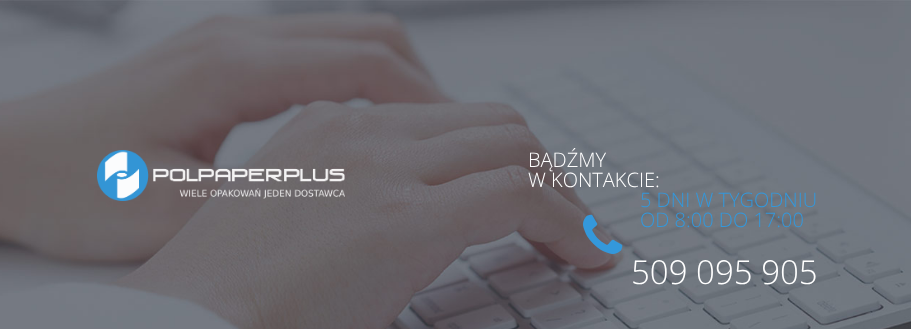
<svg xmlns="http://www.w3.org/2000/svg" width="911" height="329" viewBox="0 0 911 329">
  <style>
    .t1 { font: 300 20px Open Sans; fill: #fff; }
    .t2 { font: 300 20px Open Sans; fill: #3498db; }
    .t3 { font: 300 33px Open Sans; fill: #fff; }
  </style>
  <rect width="100%" height="100%" fill="#fff"/>
  <image x="0" y="0" width="911" height="329" href="images/1.png"/>
  <image x="97" y="150" width="248" height="51" href="images/2.png"/>
  <text x="528" y="167" class="t1">BĄDŹMY</text>
  <text x="528" y="187" class="t1">W KONTAKCIE:</text>
  <text x="640" y="207" class="t2">5 DNI W TYGODNIU</text>
  <text x="640" y="227" class="t2">OD 8:00 DO 17:00</text>
  <image x="583" y="214" width="40" height="40" href="images/3.png"/>
  <text x="631" y="284" class="t3">509 095 905</text>
</svg>
